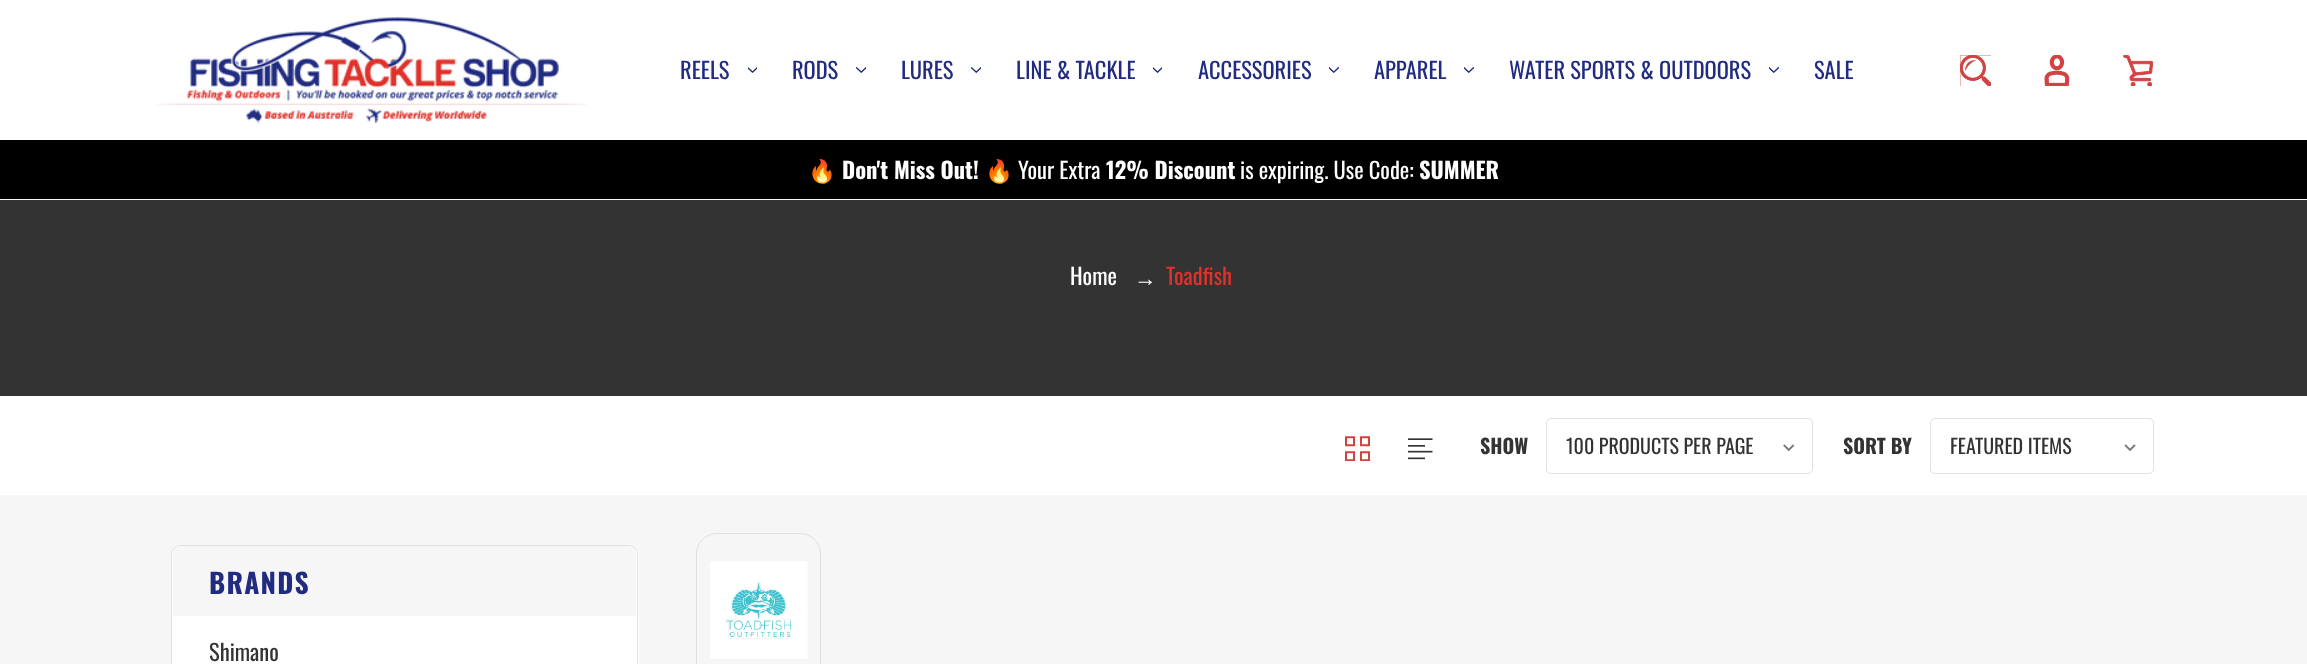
<svg xmlns="http://www.w3.org/2000/svg" width="2307" height="664" viewBox="0 0 2307 664">
  <style>
    .t1 { font: 22.5px Oswald; fill: #212c81; }
    .t2 { font: bold 22.5px Noto Color Emoji; fill: #fff; }
    .t3 { font: bold 22.5px Oswald; fill: #fff; }
    .t4 { font: 22.5px Oswald; fill: #fff; }
    .t5 { font: 22.5px Liberation Sans; fill: #fff; }
    .t6 { font: 22.5px Oswald; fill: #e0312a; }
    .t7 { font: bold 20px Oswald; fill: #333; }
    .t8 { font: 20px Oswald; fill: #333; }
    .t9 { font: bold 27.5px Oswald; letter-spacing: 1.25px; fill: #212c81; }
    .t10 { font: 22.5px Oswald; fill: #333; }
  </style>
  <rect width="100%" height="100%" fill="#f6f6f6"/>
  <rect x="0" y="0" width="2307" height="140" fill="#fff"/>
  <image x="156" y="16" width="431" height="108" href="images/1.png"/>
  <text x="680" y="79" class="t1">REELS</text>
  <image x="748" y="67" width="9" height="6" href="images/2.png"/>
  <text x="792" y="79" class="t1">RODS</text>
  <image x="856" y="67" width="10" height="6" href="images/3.png"/>
  <text x="901" y="79" class="t1">LURES</text>
  <image x="971" y="67" width="10" height="6" href="images/3.png"/>
  <text x="1016" y="79" class="t1">LINE &amp; TACKLE</text>
  <image x="1153" y="67" width="9" height="6" href="images/2.png"/>
  <text x="1198" y="79" class="t1">ACCESSORIES</text>
  <image x="1329" y="67" width="10" height="6" href="images/4.png"/>
  <text x="1374" y="79" class="t1">APPAREL</text>
  <image x="1464" y="67" width="10" height="6" href="images/4.png"/>
  <text x="1509" y="79" class="t1">WATER SPORTS &amp; OUTDOORS</text>
  <image x="1769" y="67" width="10" height="6" href="images/4.png"/>
  <text x="1814" y="79" class="t1">SALE</text>
  <image x="1960" y="55" width="31" height="31" href="images/5.png"/>
  <image x="2044" y="55" width="26" height="31" href="images/6.png"/>
  <image x="2123" y="55" width="31" height="31" href="images/7.png"/>
  <rect x="0" y="140" width="2307" height="59" fill="#000"/>
  <text x="808" y="179" class="t2">🔥</text>
  <text x="842" y="179" class="t3">Don't Miss Out!</text>
  <text x="985" y="179" class="t2">🔥</text>
  <text x="1018" y="179" class="t4">Your Extra</text>
  <text x="1106" y="179" class="t3">12% Discount</text>
  <text x="1240" y="179" class="t4">is expiring. Use Code:</text>
  <text x="1419" y="179" class="t3">SUMMER</text>
  <rect x="0" y="200" width="2307" height="196" fill="#333"/>
  <text x="1070" y="285" class="t4">Home</text>
  <text x="1134" y="286" class="t5">→</text>
  <text x="1166" y="285" class="t6">Toadfish</text>
  <rect x="0" y="396" width="2307" height="99" fill="#fff"/>
  <image x="1345" y="436" width="25" height="25" href="images/8.png"/>
  <image x="1408" y="438" width="25" height="22" href="images/9.png"/>
  <text x="1480" y="454" class="t7">SHOW</text>
  <image x="1783" y="444" width="12" height="8" href="images/10.png"/>
  <rect x="1546.5" y="418.5" width="266" height="55" rx="4.5" fill="none" stroke="#e0e0e0"/>
  <text x="1566" y="454" class="t8">100 PRODUCTS PER PAGE</text>
  <text x="1843" y="454" class="t7">SORT BY</text>
  <image x="2124" y="444" width="12" height="8" href="images/11.png"/>
  <rect x="1930.5" y="418.5" width="223" height="55" rx="4.5" fill="none" stroke="#e0e0e0"/>
  <text x="1950" y="454" class="t8">FEATURED ITEMS</text>
  <path d="M177 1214C179 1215 181 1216 183 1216H629C635 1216 639 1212 639 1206V556C639 552 637 549 634 547C636 549 638 552 638 555V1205C638 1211 633 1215 628 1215H181Z" fill="#fff"/>
  <rect x="171.5" y="545.5" width="466" height="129" rx="9.5" fill="#fff" stroke="#e0e0e0"/>
  <path d="M182 546H627C632 546 636 550 636 555V616H173V555C173 550 177 546 182 546Z" fill="#f6f6f6"/>
  <text x="209" y="594" class="t9">BRANDS</text>
  <text x="209" y="661" class="t10">Shimano</text>
  <rect x="696.5" y="533.5" width="124" height="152" rx="20.5" fill="none" stroke="#e0e0e0"/>
  <image x="710" y="561" width="98" height="98" href="images/12.png"/>
</svg>
